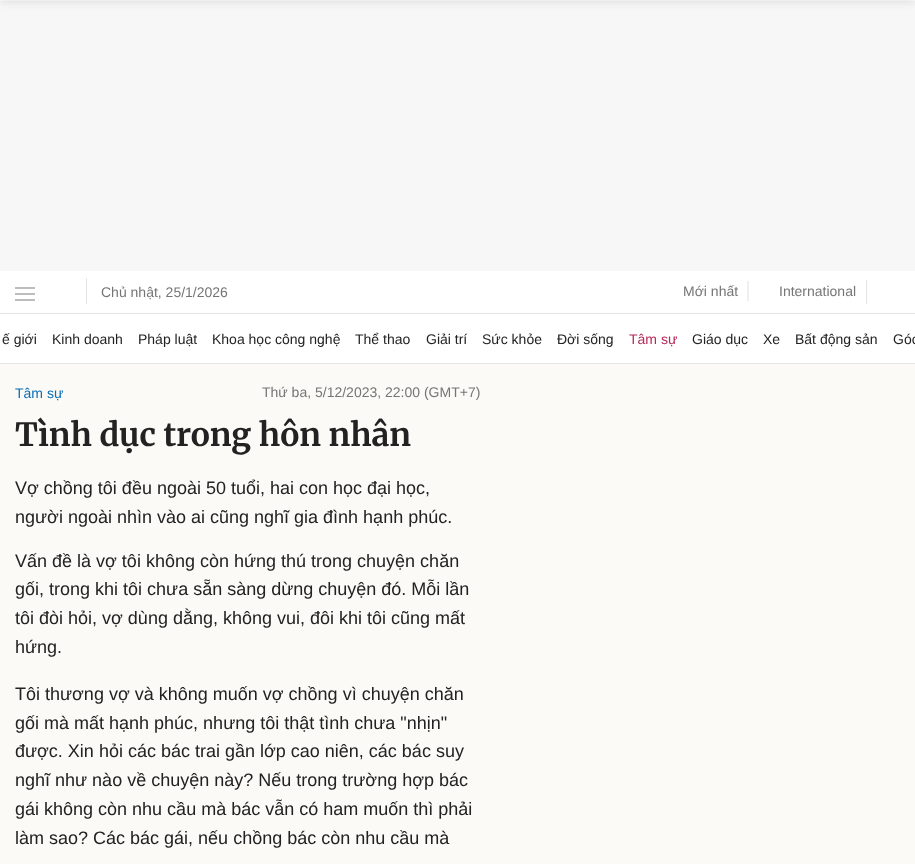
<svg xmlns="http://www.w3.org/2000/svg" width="915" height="864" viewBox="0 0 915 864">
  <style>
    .t1 { font: 14px Liberation Sans; fill: #757575; }
    .t2 { font: 14px Liberation Sans; fill: #222; }
    .t3 { font: 14px Liberation Sans; fill: #b52759; }
    .t4 { font: 14px Liberation Sans; fill: #076db6; }
    .t5 { font: bold 32px Merriweather; fill: #222; }
    .t6 { font: 18px Liberation Sans; fill: #222; }
  </style>
  <rect width="100%" height="100%" fill="#fff"/>
  <rect x="0" y="1" width="915" height="270" fill="#f7f7f7"/>
  <rect x="0" y="313" width="915" height="1" fill="#e5e5e5"/>
  <rect x="15" y="287" width="20" height="2" fill="#bdbdbd"/>
  <rect x="15" y="293" width="20" height="2" fill="#bdbdbd"/>
  <rect x="15" y="299" width="20" height="2" fill="#bdbdbd"/>
  <rect x="86" y="278" width="1" height="26" fill="#e5e5e5"/>
  <text x="101" y="297" class="t1">Chủ nhật, 25/1/2026</text>
  <text x="683" y="296" class="t1">Mới nhất</text>
  <rect x="747" y="281" width="2" height="20" fill="#efefef"/>
  <text x="779" y="296" class="t1">International</text>
  <rect x="866" y="280" width="1" height="24" fill="#e5e5e5"/>
  <rect x="0" y="363" width="915" height="1" fill="#e5e5e5"/>
  <text x="2" y="344" class="t2">ế giới</text>
  <text x="52" y="344" class="t2">Kinh doanh</text>
  <text x="138" y="344" class="t2">Pháp luật</text>
  <text x="212" y="344" class="t2">Khoa học công nghệ</text>
  <text x="355" y="344" class="t2">Thể thao</text>
  <text x="426" y="344" class="t2">Giải trí</text>
  <text x="482" y="344" class="t2">Sức khỏe</text>
  <text x="557" y="344" class="t2">Đời sống</text>
  <text x="629" y="344" class="t3">Tâm sự</text>
  <text x="692" y="344" class="t2">Giáo dục</text>
  <text x="763" y="344" class="t2">Xe</text>
  <text x="795" y="344" class="t2">Bất động sản</text>
  <text x="893" y="344" class="t2">Góc</text>
  <rect x="0" y="364" width="915" height="500" fill="#fcfaf6"/>
  <rect x="0" y="-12" width="915" height="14" fill="#0000001a" filter="blur(4px)"/>
  <text x="15" y="398" class="t4">Tâm sự</text>
  <text x="262" y="397" class="t1">Thứ ba, 5/12/2023, 22:00 (GMT+7)</text>
  <text x="15" y="446" class="t5">Tình dục trong hôn nhân</text>
  <text x="15" y="494" class="t6">Vợ chồng tôi đều ngoài 50 tuổi, hai con học đại học,</text>
  <text x="15" y="523" class="t6">người ngoài nhìn vào ai cũng nghĩ gia đình hạnh phúc.</text>
  <text x="15" y="567" class="t6">Vấn đề là vợ tôi không còn hứng thú trong chuyện chăn</text>
  <text x="15" y="595" class="t6">gối, trong khi tôi chưa sẵn sàng dừng chuyện đó. Mỗi lần</text>
  <text x="15" y="624" class="t6">tôi đòi hỏi, vợ dùng dằng, không vui, đôi khi tôi cũng mất</text>
  <text x="15" y="653" class="t6">hứng.</text>
  <text x="15" y="700" class="t6">Tôi thương vợ và không muốn vợ chồng vì chuyện chăn</text>
  <text x="15" y="729" class="t6">gối mà mất hạnh phúc, nhưng tôi thật tình chưa "nhịn"</text>
  <text x="15" y="757" class="t6">được. Xin hỏi các bác trai gần lớp cao niên, các bác suy</text>
  <text x="15" y="786" class="t6">nghĩ như nào về chuyện này? Nếu trong trường hợp bác</text>
  <text x="15" y="815" class="t6">gái không còn nhu cầu mà bác vẫn có ham muốn thì phải</text>
  <text x="15" y="844" class="t6">làm sao? Các bác gái, nếu chồng bác còn nhu cầu mà</text>
</svg>
